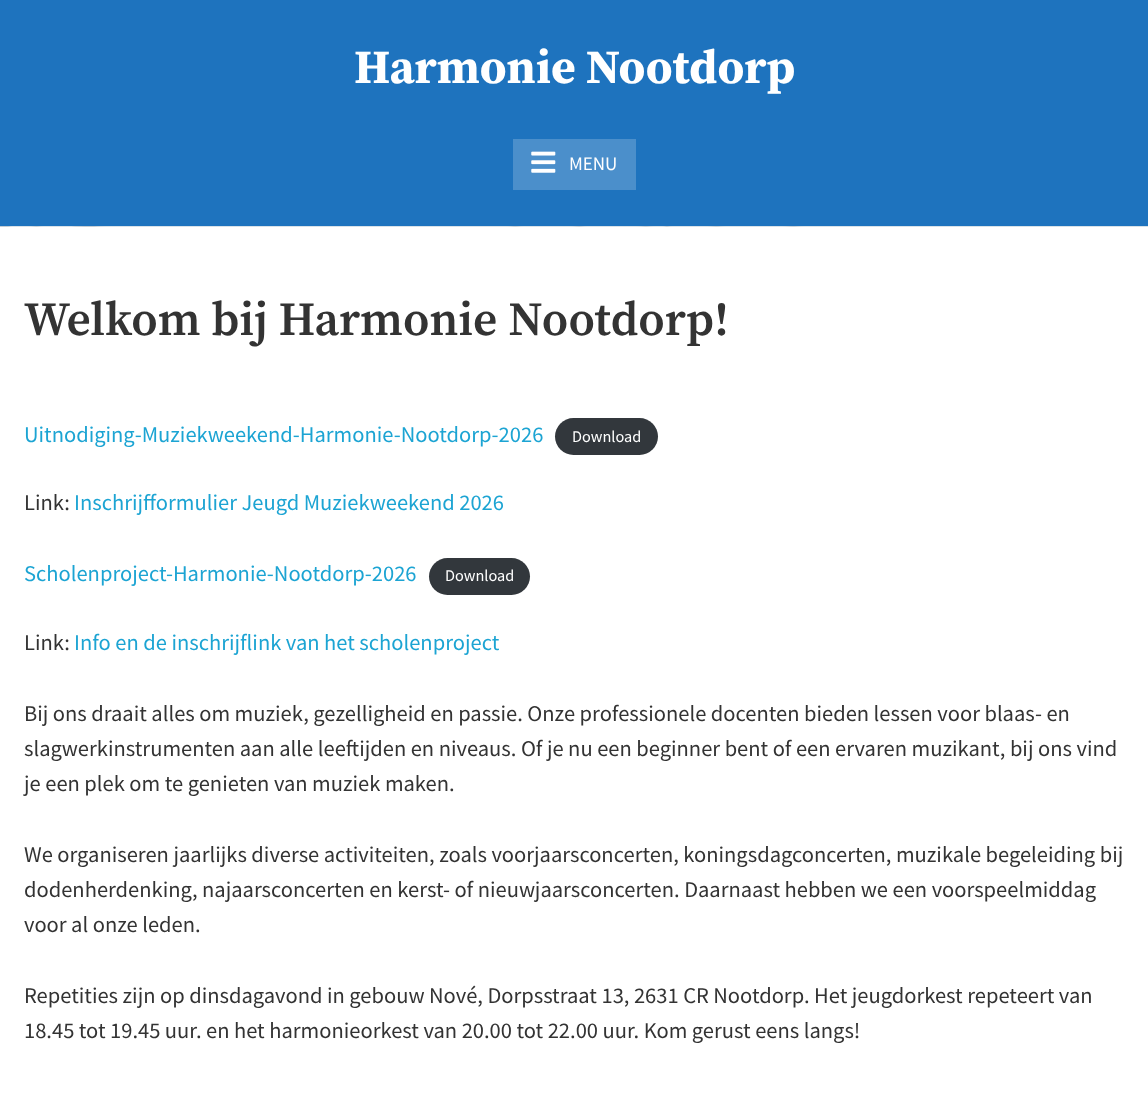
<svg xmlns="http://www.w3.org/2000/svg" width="1148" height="1114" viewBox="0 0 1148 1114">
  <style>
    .t1 { font: bold 47.5px Source Serif Pro; fill: #fff; }
    .t2 { font: 19px Source Sans Pro; fill: #fff; }
    .t3 { font: 600 47.5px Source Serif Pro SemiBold; fill: #333; }
    .t4 { font: 22.5px Source Sans Pro; fill: #1ca4d3; }
    .t5 { font: 16.25px Source Sans Pro; fill: #fff; }
    .t6 { font: 22.5px Source Sans Pro; fill: #333; }
  </style>
  <rect width="100%" height="100%" fill="#fff"/>
  <image x="0" y="226" width="1148" height="1" href="images/1.png"/>
  <rect x="0" y="0" width="1148" height="226" fill="#1e73be"/>
  <text x="354" y="83" class="t1">Harmonie Nootdorp</text>
  <rect x="513" y="139" width="123" height="51" fill="#4b8fcb"/>
  <image x="531" y="151" width="25" height="22" href="images/2.png"/>
  <text x="569" y="170" class="t2">MENU</text>
  <text x="24" y="335" class="t3">Welkom bij Harmonie Nootdorp!</text>
  <text x="24" y="442" class="t4">Uitnodiging-Muziekweekend-Harmonie-Nootdorp-2026</text>
  <rect x="555" y="418" width="103" height="37" rx="18.5" fill="#32373c"/>
  <text x="572" y="442" class="t5">Download</text>
  <text x="24" y="510" class="t6">Link:</text>
  <text x="74" y="510" class="t4">Inschrijfformulier Jeugd Muziekweekend 2026</text>
  <text x="24" y="581" class="t4">Scholenproject-Harmonie-Nootdorp-2026</text>
  <rect x="429" y="558" width="101" height="37" rx="18.5" fill="#32373c"/>
  <text x="445" y="581" class="t5">Download</text>
  <text x="24" y="650" class="t6">Link:</text>
  <text x="74" y="650" class="t4">Info en de inschrijflink van het scholenproject</text>
  <text x="24" y="721" class="t6">Bij ons draait alles om muziek, gezelligheid en passie. Onze professionele docenten bieden lessen voor blaas- en</text>
  <text x="24" y="756" class="t6">slagwerkinstrumenten aan alle leeftijden en niveaus. Of je nu een beginner bent of een ervaren muzikant, bij ons vind</text>
  <text x="24" y="791" class="t6">je een plek om te genieten van muziek maken.</text>
  <text x="24" y="862" class="t6">We organiseren jaarlijks diverse activiteiten, zoals voorjaarsconcerten, koningsdagconcerten, muzikale begeleiding bij</text>
  <text x="24" y="897" class="t6">dodenherdenking, najaarsconcerten en kerst- of nieuwjaarsconcerten. Daarnaast hebben we een voorspeelmiddag</text>
  <text x="24" y="932" class="t6">voor al onze leden.</text>
  <text x="24" y="1003" class="t6">Repetities zijn op dinsdagavond in gebouw Nové, Dorpsstraat 13, 2631 CR Nootdorp. Het jeugdorkest repeteert van</text>
  <text x="24" y="1038" class="t6">18.45 tot 19.45 uur. en het harmonieorkest van 20.00 tot 22.00 uur. Kom gerust eens langs!</text>
</svg>
